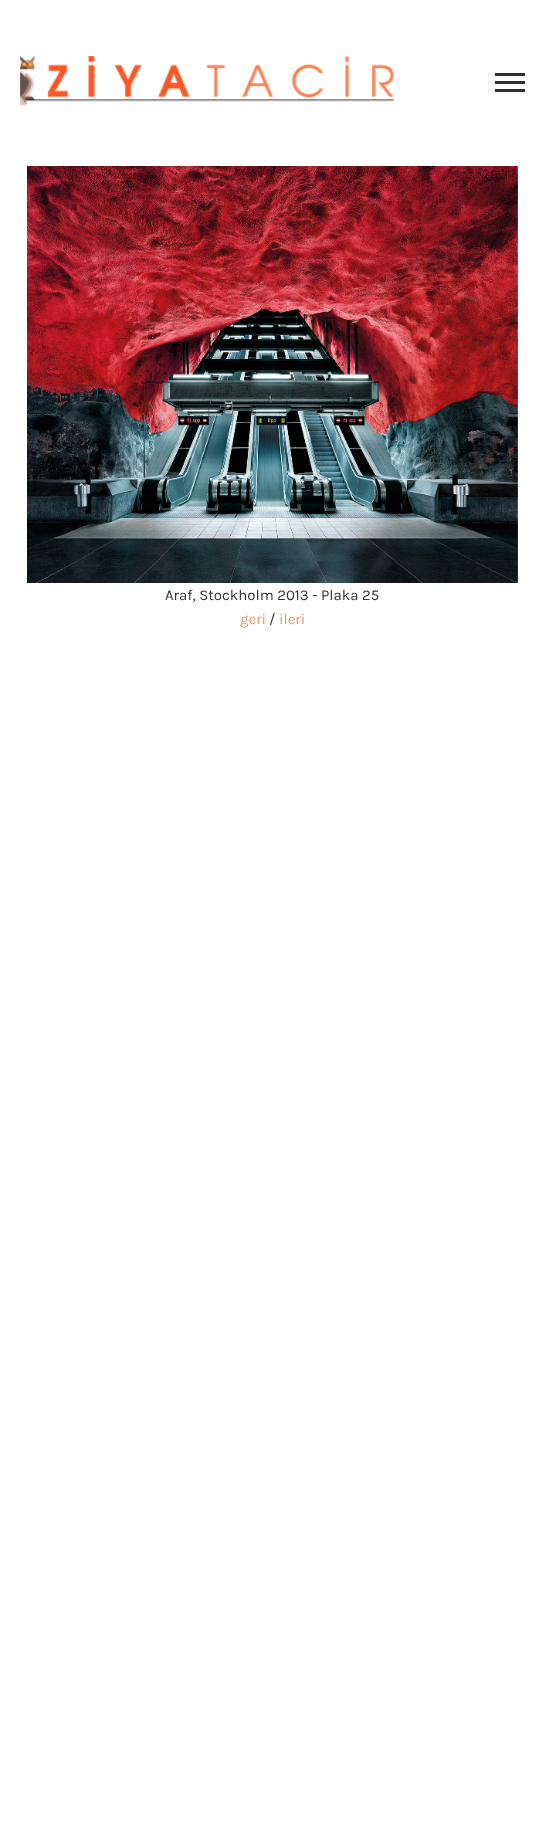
<svg xmlns="http://www.w3.org/2000/svg" width="545" height="1823" viewBox="0 0 545 1823">
  <style>
    .t1 { font: 15px Karla; fill: #333; }
    .t2 { font: 15px Karla; fill: #e79965; }
  </style>
  <rect width="100%" height="100%" fill="#fff"/>
  <image x="20" y="56" width="374" height="50" href="images/1.png"/>
  <rect x="495" y="81" width="30" height="3" fill="#2e2e2e"/>
  <rect x="495" y="73" width="30" height="3" fill="#2e2e2e"/>
  <rect x="495" y="89" width="30" height="3" fill="#2e2e2e"/>
  <image x="27" y="166" width="491" height="417" href="images/2.png"/>
  <text x="165" y="600" class="t1">Araf, Stockholm 2013 - Plaka 25</text>
  <text x="240" y="624" class="t2">geri</text>
  <text x="269" y="624" class="t1">/</text>
  <text x="279" y="624" class="t2">ileri</text>
</svg>
